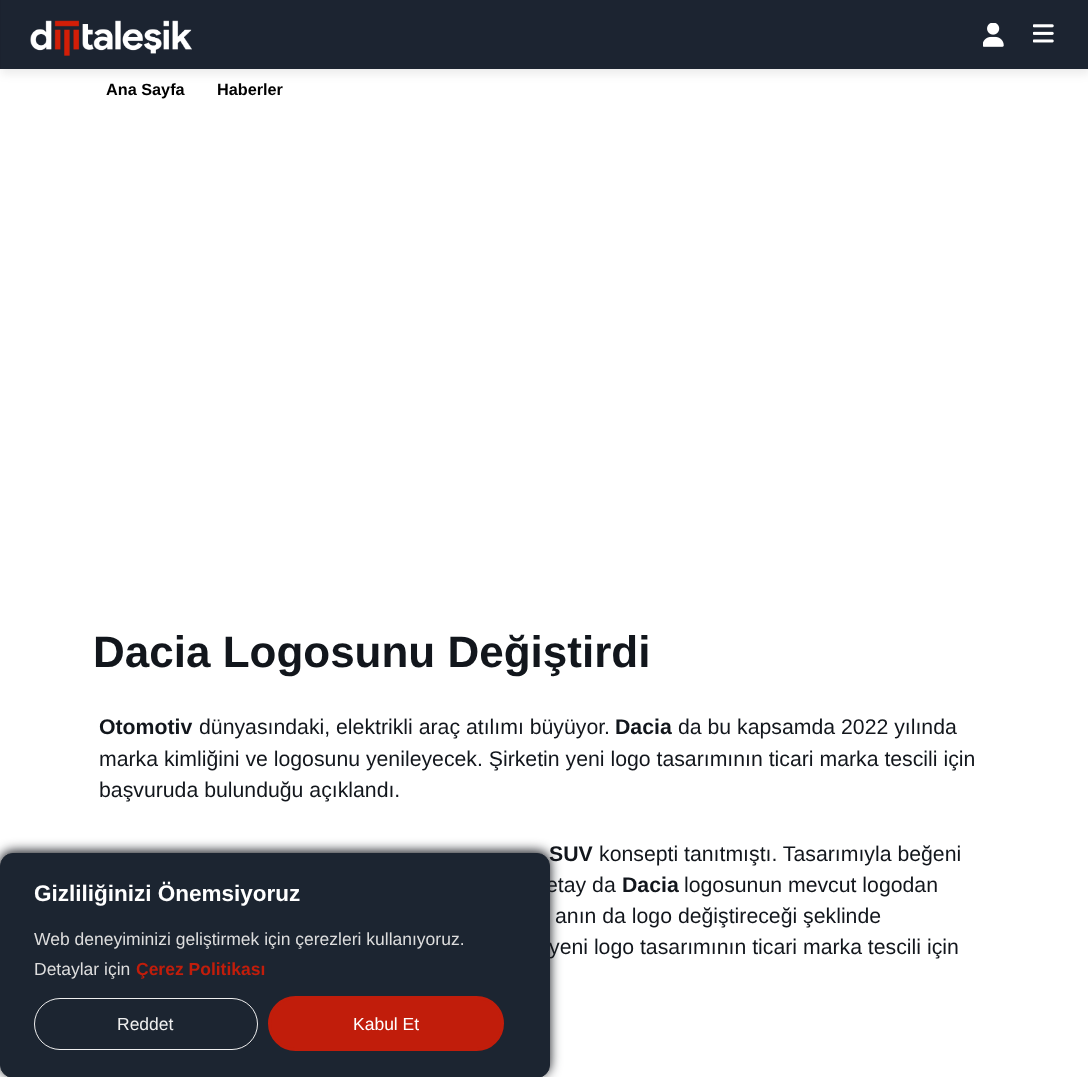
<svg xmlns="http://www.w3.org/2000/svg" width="1088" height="1077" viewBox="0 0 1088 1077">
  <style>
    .t1 { font: bold 16.25px Liberation Sans; fill: #000; }
    .t2 { font: bold 44px Liberation Sans; fill: #12161c; }
    .t3 { font: bold 21.25px Liberation Sans; fill: #12161c; }
    .t4 { font: 21.25px Liberation Sans; fill: #12161c; }
    .t5 { font: bold 22.5px Liberation Sans; fill: #fff; }
    .t6 { font: 17.5px Liberation Sans; fill: #ddd; }
    .t7 { font: bold 17.5px Liberation Sans; fill: #c11d0b; }
    .t8 { font: 17.5px Liberation Sans; fill: #efefef; }
    .t9 { font: 17.5px Liberation Sans; fill: #fff; }
  </style>
  <defs>
    <clipPath id="clip1"><path d="M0 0H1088V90H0ZM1-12H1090V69H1Z" clip-rule="evenodd"/></clipPath>
  </defs>
  <rect width="100%" height="100%" fill="#fff"/>
  <rect x="0" y="0" width="1088" height="69" fill="#1c2431"/>
  <image x="30" y="20" width="162" height="36" href="images/1.png"/>
  <image x="983" y="23" width="21" height="24" href="images/2.png"/>
  <image x="1033" y="24" width="21" height="19" href="images/3.png"/>
  <g clip-path="url(#clip1)">
    <rect x="1" y="-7" width="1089" height="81" fill="#00000014" filter="blur(5px)"/>
  </g>
  <text x="106" y="95" class="t1">Ana Sayfa</text>
  <text x="217" y="95" class="t1">Haberler</text>
  <text x="93" y="667" class="t2">Dacia Logosunu Değiştirdi</text>
  <text x="99" y="734" class="t3">Otomotiv</text>
  <text x="199" y="734" class="t4">dünyasındaki, elektrikli araç atılımı büyüyor.</text>
  <text x="615" y="734" class="t3">Dacia</text>
  <text x="678" y="734" class="t4">da bu kapsamda 2022 yılında</text>
  <text x="99" y="766" class="t4">marka kimliğini ve logosunu yenileyecek. Şirketin yeni logo tasarımının ticari marka tescili için</text>
  <text x="99" y="797" class="t4">başvuruda bulunduğu açıklandı.</text>
  <text x="549" y="861" class="t3">SUV</text>
  <text x="599" y="861" class="t4">konsepti tanıtmıştı. Tasarımıyla beğeni</text>
  <text x="546" y="892" class="t4">etay da</text>
  <text x="622" y="892" class="t3">Dacia</text>
  <text x="684" y="892" class="t4">logosunun mevcut logodan</text>
  <text x="555" y="923" class="t4">anın da logo değiştireceği şeklinde</text>
  <text x="549" y="954" class="t4">yeni logo tasarımının ticari marka tescili için</text>
  <rect x="0" y="851" width="550" height="225" rx="13" fill="#13161c" filter="blur(6px)"/>
  <rect x="0.5" y="853.5" width="549" height="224" rx="12.5" fill="#1c2531" stroke="#1c2531"/>
  <text x="34" y="901" class="t5">Gizliliğinizi Önemsiyoruz</text>
  <text x="34" y="945" class="t6">Web deneyiminizi geliştirmek için çerezleri kullanıyoruz.</text>
  <text x="34" y="975" class="t6">Detaylar için</text>
  <text x="136" y="975" class="t7">Çerez Politikası</text>
  <rect x="34.5" y="998.5" width="223" height="51" rx="25.5" fill="none" stroke="#efefef"/>
  <text x="117" y="1030" class="t8">Reddet</text>
  <rect x="269.5" y="997.5" width="233" height="52" rx="26" fill="#c11d0b" stroke="#c11d0b" stroke-width="3"/>
  <text x="353" y="1030" class="t9">Kabul Et</text>
</svg>
